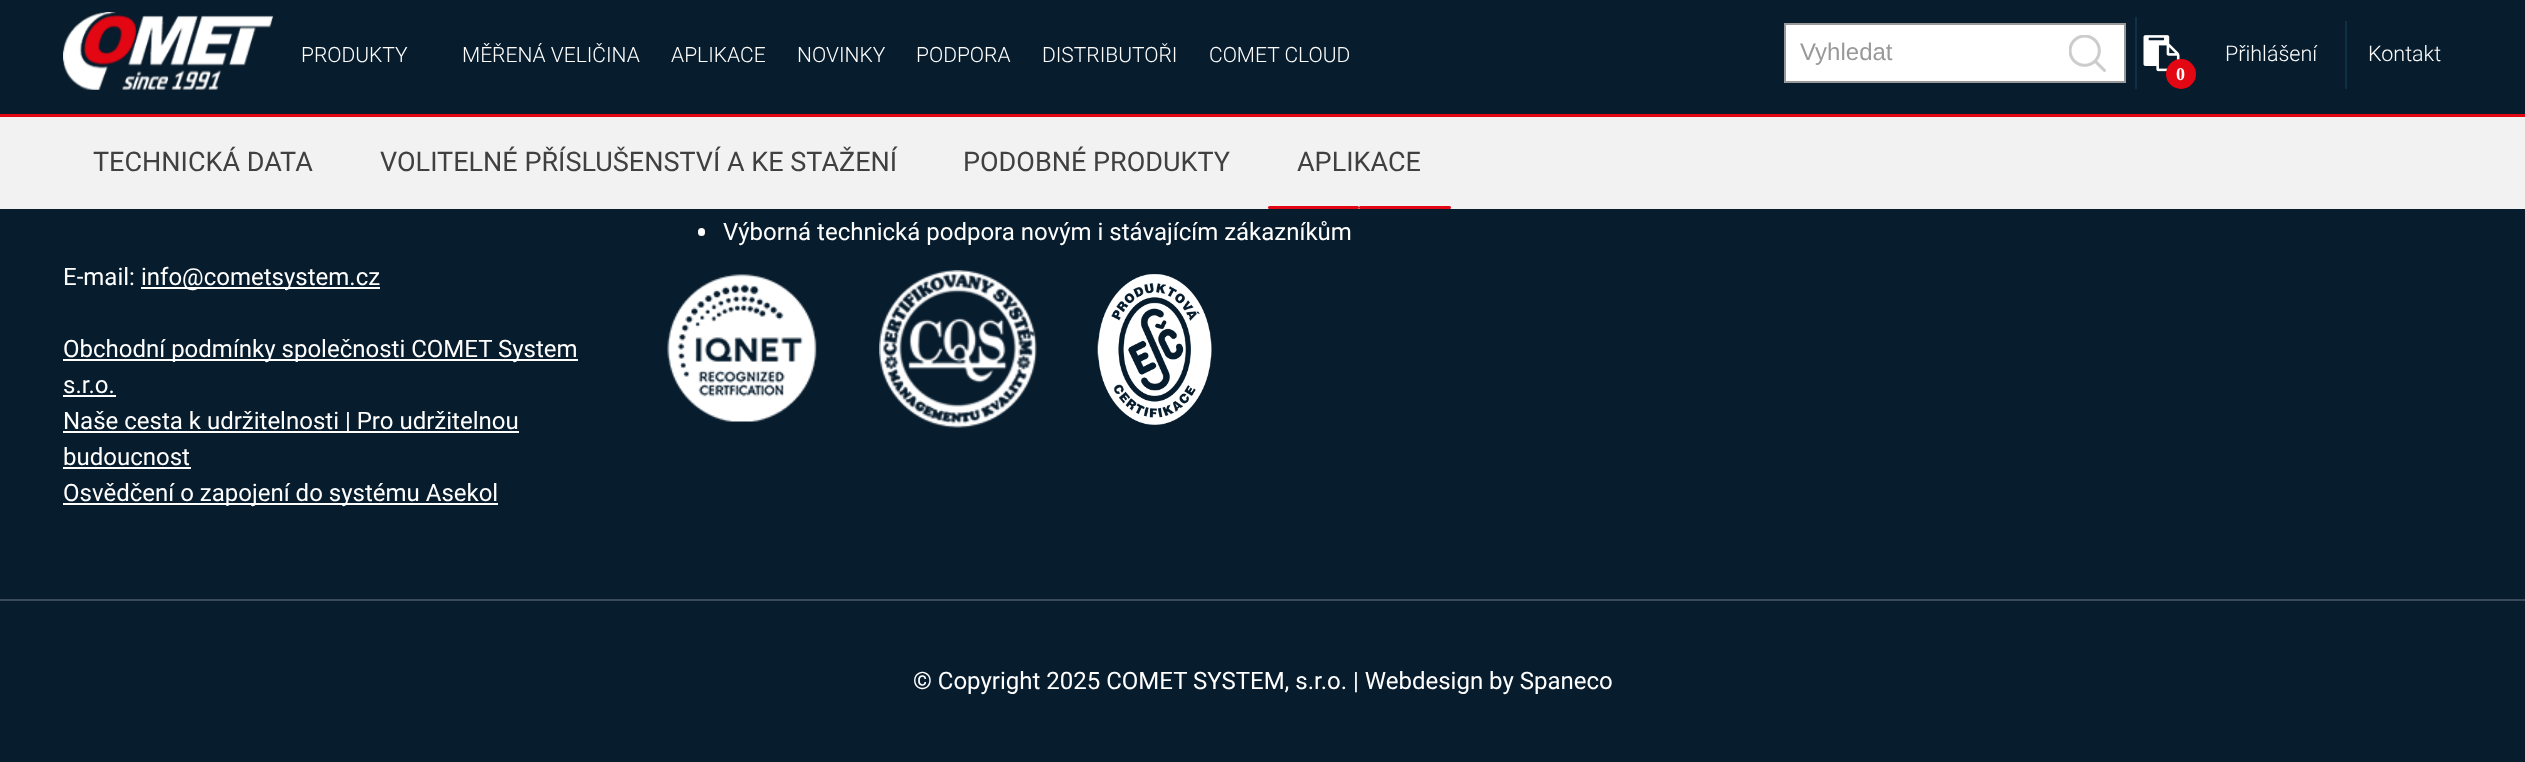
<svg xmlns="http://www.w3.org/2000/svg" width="2525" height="762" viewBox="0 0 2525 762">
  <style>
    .t1 { font: 300 21px Roboto; fill: #fff; }
    .t2 { font: 24px Liberation Sans; fill: #999; }
    .t3 { font: 300 21.5px Roboto; fill: #fff; }
    .t4 { font: bold 18px Liberation Serif; fill: #fff; }
    .t5 { font: 27px Roboto; fill: #404040; }
    .t6 { font: 24px Roboto; fill: #fff; }
  </style>
  <rect width="100%" height="100%" fill="#071c2d"/>
  <rect x="0" y="114" width="2525" height="3" fill="#e30613"/>
  <text x="301" y="62" class="t1">PRODUKTY</text>
  <text x="462" y="62" class="t1">MĚŘENÁ VELIČINA</text>
  <text x="671" y="62" class="t1">APLIKACE</text>
  <text x="797" y="62" class="t1">NOVINKY</text>
  <text x="916" y="62" class="t1">PODPORA</text>
  <text x="1042" y="62" class="t1">DISTRIBUTOŘI</text>
  <text x="1209" y="62" class="t1">COMET CLOUD</text>
  <image x="63" y="12" width="211" height="78" href="images/1.png"/>
  <rect x="1785" y="24" width="340" height="58" fill="#fff" stroke="#999" stroke-width="2"/>
  <text x="1800" y="60" class="t2">Vyhledat</text>
  <image x="2069" y="35" width="37" height="37" href="images/2.png"/>
  <text x="2225" y="61" class="t3">Přihlášení</text>
  <rect x="2345" y="21" width="2" height="68" fill="#103144"/>
  <text x="2368" y="61" class="t3">Kontakt</text>
  <rect x="2135" y="17" width="2" height="72" fill="#103144"/>
  <image x="2143" y="35" width="37" height="37" href="images/3.png"/>
  <circle cx="2181" cy="74" r="15" fill="#e30613"/>
  <text x="2176" y="80" class="t4">0</text>
  <rect x="0" y="117" width="2525" height="92" fill="#f2f2f2"/>
  <text x="93" y="171" class="t5">TECHNICKÁ DATA</text>
  <text x="380" y="171" class="t5">VOLITELNÉ PŘÍSLUŠENSTVÍ A KE STAŽENÍ</text>
  <text x="963" y="171" class="t5">PODOBNÉ PRODUKTY</text>
  <text x="1297" y="171" class="t5">APLIKACE</text>
  <rect x="1268" y="206" width="91" height="3" rx="1.5" fill="#e30613"/>
  <rect x="1359" y="206" width="92" height="3" rx="1.5" fill="#e30613"/>
  <rect x="698" y="228" width="7" height="8" rx="3.5" fill="#fff"/>
  <text x="723" y="240" class="t6">Výborná technická podpora novým i stávajícím zákazníkům</text>
  <image x="667" y="274" width="150" height="148" href="images/4.png"/>
  <image x="879" y="270" width="158" height="158" href="images/5.png"/>
  <image x="1097" y="274" width="115" height="151" href="images/6.png"/>
  <text x="63" y="285" class="t6">E-mail:</text>
  <rect x="141" y="287" width="239" height="2" fill="#fff"/>
  <text x="141" y="285" class="t6">info@cometsystem.cz</text>
  <rect x="63" y="359" width="515" height="2" fill="#fff"/>
  <text x="63" y="357" class="t6">Obchodní podmínky společnosti COMET System</text>
  <text x="63" y="393" class="t6">s.r.o.</text>
  <rect x="63" y="395" width="53" height="2" fill="#fff"/>
  <rect x="63" y="431" width="456" height="2" fill="#fff"/>
  <text x="63" y="429" class="t6">Naše cesta k udržitelnosti | Pro udržitelnou</text>
  <text x="63" y="465" class="t6">budoucnost</text>
  <rect x="63" y="467" width="128" height="2" fill="#fff"/>
  <rect x="63" y="503" width="435" height="2" fill="#fff"/>
  <text x="63" y="501" class="t6">Osvědčení o zapojení do systému Asekol</text>
  <rect x="0" y="599" width="2525" height="2" fill="#394957"/>
  <text x="913" y="689" class="t6">© Copyright 2025 COMET SYSTEM, s.r.o. | Webdesign by Spaneco</text>
</svg>
